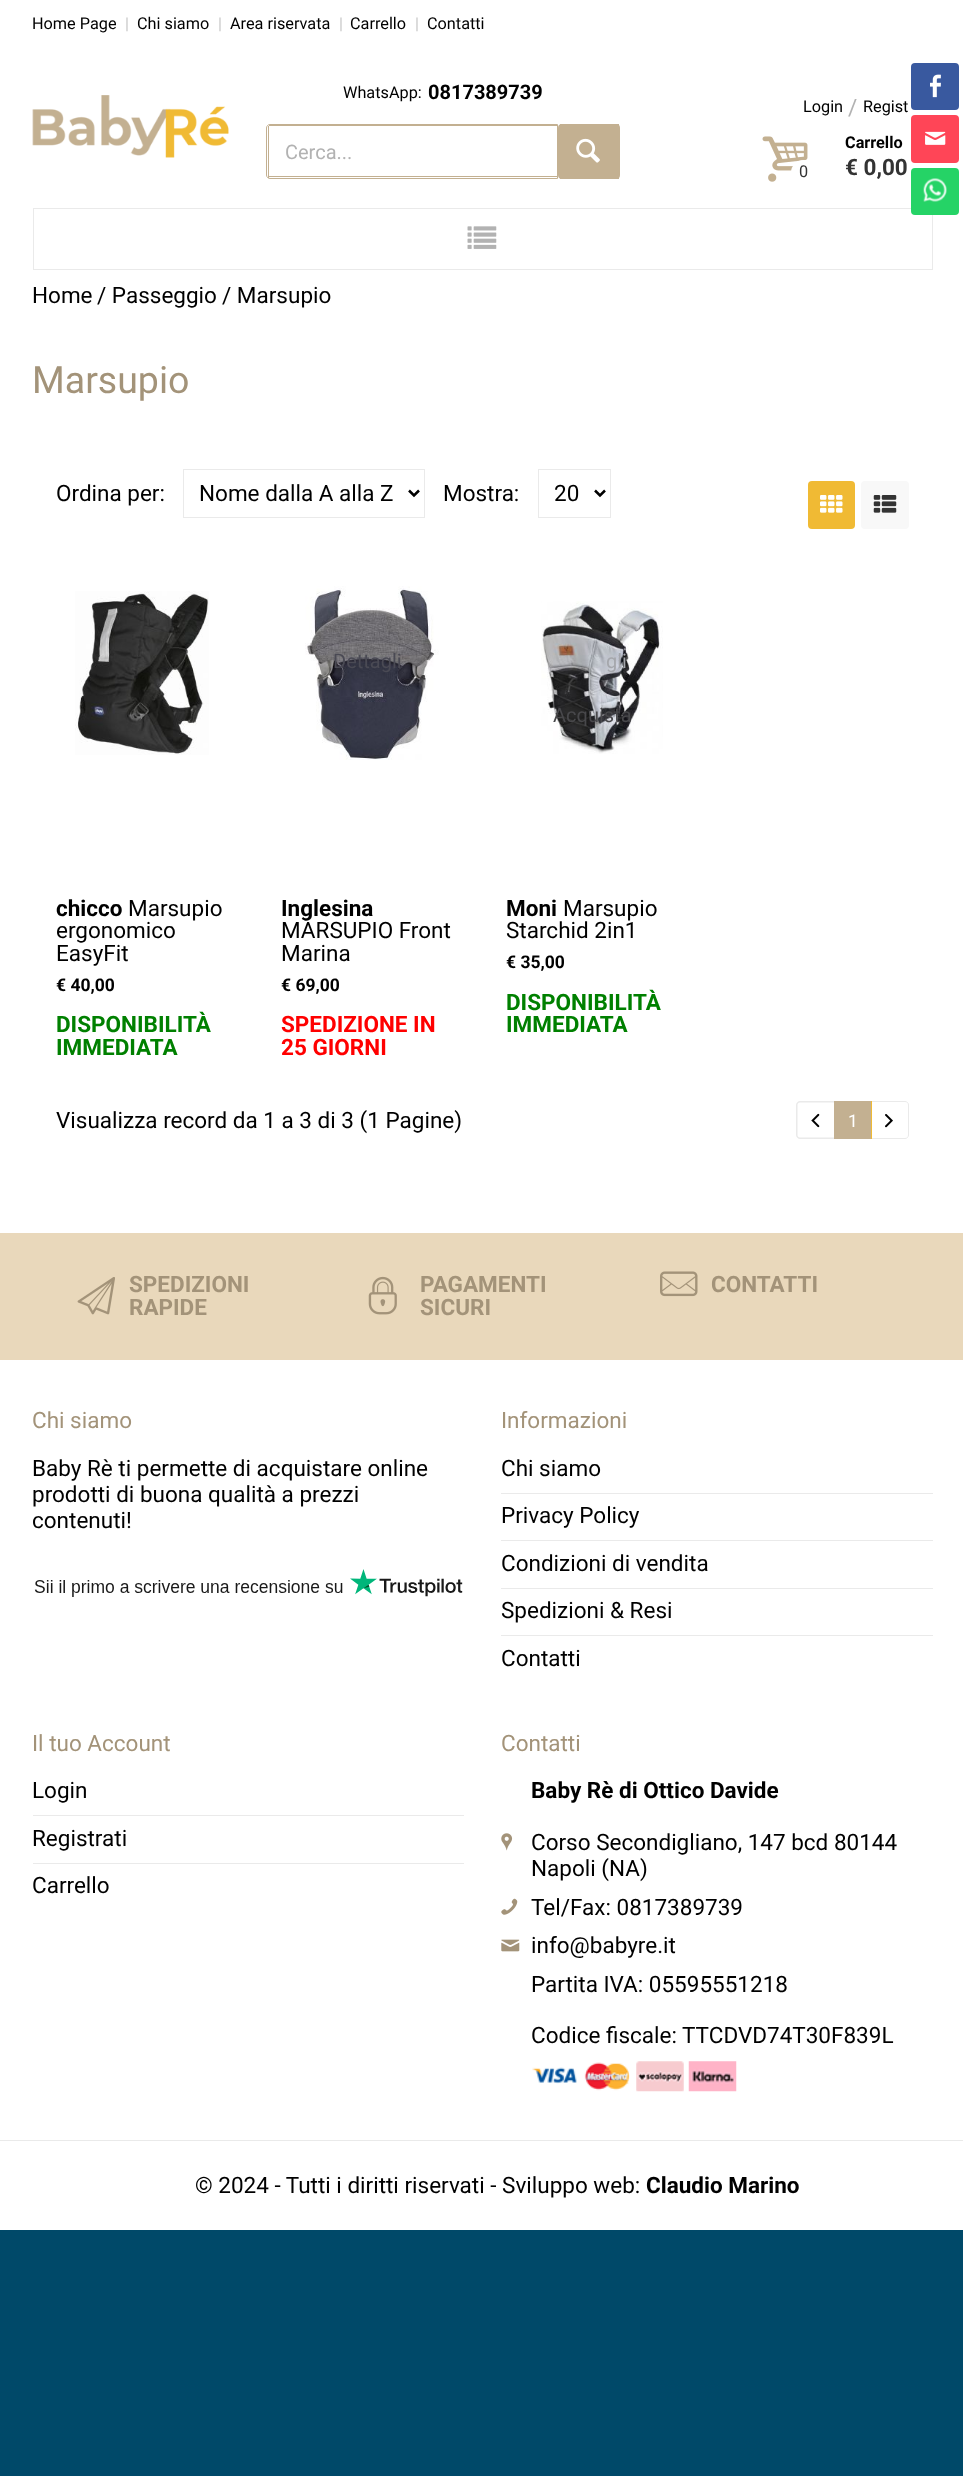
<svg xmlns="http://www.w3.org/2000/svg" width="963" height="2476" viewBox="0 0 963 2476">
  <style>
    .t1 { font: 16.25px Roboto; fill: #000; }
    .t2 { font: 16.25px Roboto; fill: #c8c8c8; }
    .t3 { font: bold 20px Roboto; fill: #000; }
    .t4 { font: 20px Roboto; fill: #b2b2b2; }
    .t5 { font: 22.5px Roboto; fill: #b2b2b2; }
    .t6 { font: bold 16.25px Roboto; fill: #000; }
    .t7 { font: 16.25px Roboto; fill: #333; }
    .t8 { font: bold 22.5px Roboto; fill: #333; }
    .t9 { font: 22.5px Roboto; fill: #000; }
    .t10 { font: 37.5px Roboto; fill: #a39379; }
    .t11 { font: bold 22.5px Roboto; fill: #000; }
    .t12 { font: bold 17.5px Roboto; fill: #000; }
    .t13 { font: bold 22.5px Roboto; fill: #008000; }
    .t14 { font: 20px Roboto; fill: #4a4a54; }
    .t15 { font: bold 22.5px Roboto; fill: #f00; }
    .t16 { font: 20px Roboto; fill: #a5a7ac; }
    .t17 { font: 20px Roboto; fill: #48484b; }
    .t18 { font: 17.5px Roboto; fill: #fff; }
    .t19 { font: bold 22.5px Roboto; fill: #a39379; }
    .t20 { font: 22.5px Roboto; fill: #a39379; }
  </style>
  <rect width="100%" height="100%" fill="#004969"/>
  <rect x="0" y="0" width="963" height="2230" fill="#fff"/>
  <text x="32" y="29" class="t1">Home Page</text>
  <text x="125" y="29" class="t2">|</text>
  <text x="137" y="29" class="t1">Chi siamo</text>
  <text x="218" y="29" class="t2">|</text>
  <text x="230" y="29" class="t1">Area riservata</text>
  <text x="339" y="29" class="t2">|</text>
  <text x="350" y="29" class="t1">Carrello</text>
  <text x="415" y="29" class="t2">|</text>
  <text x="427" y="29" class="t1">Contatti</text>
  <image x="32" y="95" width="197" height="63" href="images/1.png"/>
  <text x="343" y="98" class="t1">WhatsApp:</text>
  <text x="428" y="99" class="t3">0817389739</text>
  <path d="M270 124.5H557.5V178.5H270C268 178.5 266.5 177 266.5 175V128C266.5 126 268 124.5 270 124.5Z" fill="none" stroke="#c3b091"/>
  <rect x="269" y="125" width="289" height="1" fill="#c3b091"/>
  <rect x="269" y="176" width="289" height="1" fill="#c3b091"/>
  <rect x="268" y="126" width="1" height="52" fill="#c3b091"/>
  <text x="285" y="159" class="t4">Cerca...</text>
  <rect x="558" y="124" width="62" height="55" rx="4" fill="#c3b091"/>
  <rect x="560" y="124" width="59" height="2" fill="#c3b091"/>
  <rect x="560" y="177" width="59" height="2" fill="#c3b091"/>
  <image x="576" y="138" width="24" height="25" href="images/2.png"/>
  <text x="803" y="112" class="t1">Login</text>
  <text x="848" y="115" class="t5">/</text>
  <text x="863" y="112" class="t1">Regist</text>
  <image x="762" y="136" width="46" height="46" href="images/3.png"/>
  <text x="845" y="148" class="t6">Carrello</text>
  <circle cx="803.5" cy="172.5" r="12.5" fill="#fff"/>
  <text x="799" y="177" class="t7">0</text>
  <text x="845" y="175" class="t8">€ 0,00</text>
  <rect x="33.5" y="208.5" width="899" height="61" fill="none" stroke="#eaeaea"/>
  <image x="467" y="226" width="30" height="23" href="images/4.png"/>
  <text x="32" y="303" class="t9">Home</text>
  <text x="97" y="303" class="t9">/ Passeggio</text>
  <text x="222" y="303" class="t9">/ Marsupio</text>
  <text x="32" y="393" class="t10">Marsupio</text>
  <text x="56" y="501" class="t9">Ordina per:</text>
  <rect x="183.5" y="469.5" width="241" height="48" fill="none" stroke="#eaeaea"/>
  <path d="M409 490.5L414 495.5L419 490.5" fill="none" stroke="#000" stroke-width="2.5"/>
  <text x="199" y="501" class="t9">Nome dalla A alla Z</text>
  <text x="443" y="501" class="t9">Mostra:</text>
  <rect x="538.5" y="469.5" width="72" height="48" fill="none" stroke="#eaeaea"/>
  <path d="M595 490.5L600 495.5L605 490.5" fill="none" stroke="#000" stroke-width="2.5"/>
  <text x="554" y="501" class="t9">20</text>
  <rect x="808" y="481" width="47" height="48" rx="4" fill="#f0ba34"/>
  <image x="820" y="495" width="23" height="18" href="images/5.png"/>
  <rect x="861" y="481" width="48" height="48" rx="4" fill="#f8f8f8"/>
  <image x="873" y="495" width="24" height="18" href="images/6.png"/>
  <image x="75" y="591" width="134" height="164" href="images/7.png"/>
  <text x="56" y="916" class="t11">chicco</text>
  <text x="128" y="916" class="t9">Marsupio</text>
  <text x="56" y="938" class="t9">ergonomico</text>
  <text x="56" y="961" class="t9">EasyFit</text>
  <text x="56" y="991" class="t12">€ 40,00</text>
  <text x="56" y="1032" class="t13">DISPONIBILITÀ</text>
  <text x="56" y="1055" class="t13">IMMEDIATA</text>
  <image x="305" y="586" width="134" height="174" href="images/8.png"/>
  <text x="333" y="668" class="t14">Dettagli</text>
  <text x="281" y="916" class="t11">Inglesina</text>
  <text x="281" y="938" class="t9">MARSUPIO Front</text>
  <text x="281" y="961" class="t9">Marina</text>
  <text x="281" y="991" class="t12">€ 69,00</text>
  <text x="281" y="1032" class="t15">SPEDIZIONE IN</text>
  <text x="281" y="1055" class="t15">25 GIORNI</text>
  <image x="541" y="601" width="122" height="153" href="images/9.png"/>
  <text x="606" y="668" class="t16">gli</text>
  <text x="553" y="722" class="t17">Acquista</text>
  <text x="506" y="916" class="t11">Moni</text>
  <text x="563" y="916" class="t9">Marsupio</text>
  <text x="506" y="938" class="t9">Starchid 2in1</text>
  <text x="506" y="968" class="t12">€ 35,00</text>
  <text x="506" y="1010" class="t13">DISPONIBILITÀ</text>
  <text x="506" y="1032" class="t13">IMMEDIATA</text>
  <text x="56" y="1128" class="t9">Visualizza record da 1 a 3 di 3 (1 Pagine)</text>
  <path d="M800 1101H834V1139H800C798 1139 796 1137 796 1135V1105C796 1103 798 1101 800 1101ZM800 1102.5H834V1137.5H800C798.5 1137.5 797.5 1136.5 797.5 1135V1105C797.5 1103.5 798.5 1102.5 800 1102.5Z" fill="#eaeaea" fill-rule="evenodd"/>
  <image x="811" y="1113" width="9" height="15" href="images/10.png"/>
  <rect x="834" y="1101" width="37" height="38" fill="#c3b091"/>
  <text x="848" y="1127" class="t18">1</text>
  <path d="M871.5 1101.5H905C907 1101.5 908.5 1103 908.5 1105V1135C908.5 1137 907 1138.5 905 1138.5H871.5Z" fill="none" stroke="#eaeaea"/>
  <rect x="871" y="1101" width="1" height="38" fill="#f0ba34"/>
  <image x="885" y="1114" width="8" height="14" href="images/11.png"/>
  <rect x="0" y="1233" width="963" height="127" fill="#e9d8bb"/>
  <image x="77" y="1277" width="38" height="38" href="images/12.png"/>
  <text x="129" y="1292" class="t19">SPEDIZIONI</text>
  <text x="129" y="1315" class="t19">RAPIDE</text>
  <image x="368" y="1276" width="29" height="39" href="images/13.png"/>
  <text x="420" y="1292" class="t19">PAGAMENTI</text>
  <text x="420" y="1315" class="t19">SICURI</text>
  <image x="660" y="1271" width="38" height="26" href="images/14.png"/>
  <text x="711" y="1292" class="t19">CONTATTI</text>
  <text x="32" y="1428" class="t20">Chi siamo</text>
  <text x="32" y="1476" class="t9">Baby Rè ti permette di acquistare online</text>
  <text x="32" y="1502" class="t9">prodotti di buona qualità a prezzi</text>
  <text x="32" y="1528" class="t9">contenuti!</text>
  <image x="34" y="1569" width="429" height="28" href="images/15.png"/>
  <text x="501" y="1428" class="t20">Informazioni</text>
  <rect x="501" y="1493" width="432" height="1" fill="#eaeaea"/>
  <text x="501" y="1476" class="t9">Chi siamo</text>
  <rect x="501" y="1540" width="432" height="1" fill="#eaeaea"/>
  <text x="501" y="1523" class="t9">Privacy Policy</text>
  <rect x="501" y="1588" width="432" height="1" fill="#eaeaea"/>
  <text x="501" y="1571" class="t9">Condizioni di vendita</text>
  <rect x="501" y="1635" width="432" height="1" fill="#eaeaea"/>
  <text x="501" y="1618" class="t9">Spedizioni &amp; Resi</text>
  <text x="501" y="1666" class="t9">Contatti</text>
  <text x="32" y="1751" class="t20">Il tuo Account</text>
  <rect x="33" y="1815" width="431" height="1" fill="#eaeaea"/>
  <text x="32" y="1798" class="t9">Login</text>
  <rect x="33" y="1863" width="431" height="1" fill="#eaeaea"/>
  <text x="32" y="1846" class="t9">Registrati</text>
  <text x="32" y="1893" class="t9">Carrello</text>
  <text x="501" y="1751" class="t20">Contatti</text>
  <text x="531" y="1798" class="t11">Baby Rè di Ottico Davide</text>
  <image x="501" y="1833" width="12" height="18" href="images/16.png"/>
  <text x="531" y="1850" class="t9">Corso Secondigliano, 147 bcd 80144</text>
  <text x="531" y="1876" class="t9">Napoli (NA)</text>
  <image x="501" y="1898" width="17" height="17" href="images/17.png"/>
  <text x="531" y="1915" class="t9">Tel/Fax: 0817389739</text>
  <image x="501" y="1939" width="19" height="13" href="images/18.png"/>
  <text x="531" y="1953" class="t9">info@babyre.it</text>
  <text x="531" y="1992" class="t9">Partita IVA: 05595551218</text>
  <text x="531" y="2043" class="t9">Codice fiscale: TTCDVD74T30F839L</text>
  <image x="532" y="2067" width="45" height="17" href="images/19.png"/>
  <image x="584" y="2062" width="46" height="29" href="images/20.png"/>
  <image x="636" y="2061" width="48" height="31" href="images/21.png"/>
  <image x="688" y="2061" width="49" height="31" href="images/22.png"/>
  <rect x="0" y="2140" width="963" height="1" fill="#eaeaea"/>
  <text x="195" y="2193" class="t9">© 2024 - Tutti i diritti riservati - Sviluppo web:</text>
  <text x="646" y="2193" class="t11">Claudio Marino</text>
  <rect x="911" y="63" width="48" height="47" rx="4" fill="#39599f"/>
  <image x="930" y="74" width="11" height="24" href="images/23.png"/>
  <rect x="911" y="115" width="48" height="48" rx="4" fill="#ff4557"/>
  <image x="925" y="131" width="21" height="14" href="images/24.png"/>
  <rect x="911" y="168" width="48" height="47" rx="4" fill="#25d366"/>
  <image x="923" y="178" width="24" height="24" href="images/25.png"/>
</svg>
